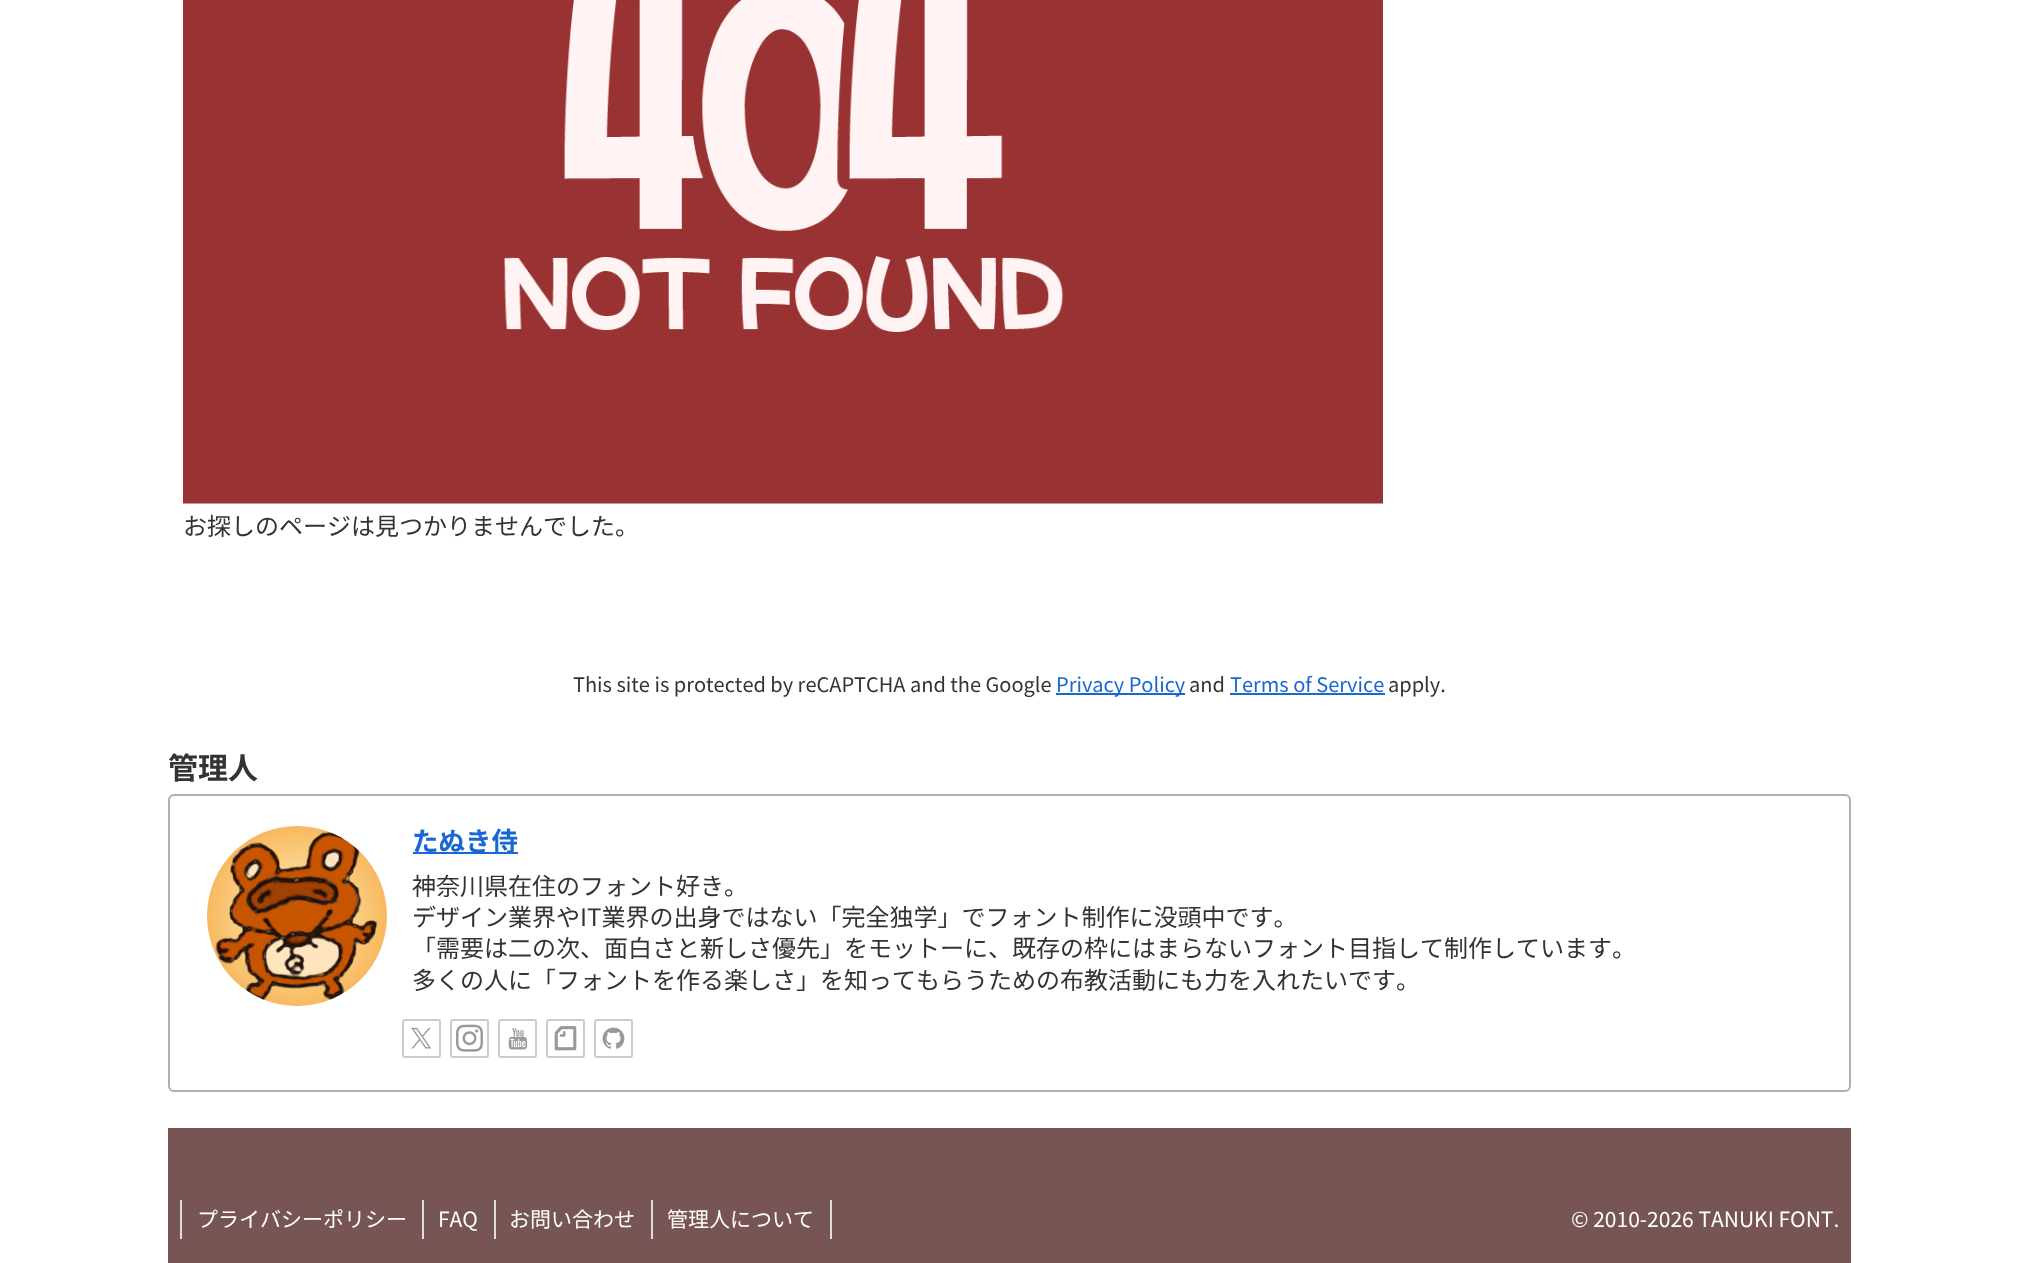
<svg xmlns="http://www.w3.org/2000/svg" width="2018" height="1263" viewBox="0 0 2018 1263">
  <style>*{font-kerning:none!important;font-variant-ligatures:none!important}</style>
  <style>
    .t1 { font: 24px Noto Sans JP; fill: #333; }
    .t2 { font: 20px Noto Sans JP; fill: #333; }
    .t3 { font: 20px Noto Sans JP; fill: #1967d2; }
    .t4 { font: bold 30px Noto Sans JP; fill: #333; }
    .t5 { font: bold 26.5px Noto Sans JP; fill: #1967d2; }
    .t6 { font: 21px Noto Sans JP; fill: #fff; }
  </style>
  <rect width="100%" height="100%" fill="#fff"/>
  <image x="183" y="0" width="1200" height="504" href="images/1.png"/>
  <text x="183" y="535" class="t1">お探しのページは見つかりませんでした。</text>
  <text x="573" y="692" class="t2">This site is protected by reCAPTCHA and the Google</text>
  <rect x="1056" y="693" width="129" height="2" fill="#1967d2"/>
  <text x="1056" y="692" class="t3">Privacy Policy</text>
  <text x="1189" y="692" class="t2">and</text>
  <text x="1230" y="692" class="t3">Terms of Service</text>
  <text x="1388" y="692" class="t2">apply.</text>
  <rect x="1230" y="693" width="155" height="2" fill="#1967d2"/>
  <text x="168" y="779" class="t4">管理人</text>
  <rect x="169" y="795" width="1681" height="296" rx="5" fill="none" stroke="#baa" stroke-width="2"/>
  <image x="207" y="826" width="180" height="180" href="images/2.png"/>
  <rect x="413" y="852" width="105" height="2" fill="#1967d2"/>
  <text x="412" y="851" class="t5">たぬき侍</text>
  <text x="412" y="895" class="t1">神奈川県在住のフォント好き。</text>
  <text x="412" y="926" class="t1">デザイン業界やIT業界の出身ではない「完全独学」でフォント制作に没頭中です。</text>
  <text x="412" y="957" class="t1">「需要は二の次、面白さと新しさ優先」をモットーに、既存の枠にはまらないフォント目指して制作しています</text>
  <text x="1612" y="957" class="t1">。</text>
  <text x="412" y="989" class="t1">多くの人に「フォントを作る楽しさ」を知ってもらうための布教活動にも力を入れたいです</text>
  <text x="1396" y="989" class="t1">。</text>
  <rect x="403" y="1020" width="37" height="37" rx="2" fill="none" stroke="#ccc" stroke-width="2"/>
  <image x="411" y="1027" width="21" height="22" href="images/3.png"/>
  <rect x="451" y="1020" width="37" height="37" rx="2" fill="none" stroke="#ccc" stroke-width="2"/>
  <image x="456" y="1024" width="27" height="28" href="images/4.png"/>
  <rect x="499" y="1020" width="37" height="37" rx="2" fill="none" stroke="#ccc" stroke-width="2"/>
  <image x="508" y="1028" width="19" height="22" href="images/5.png"/>
  <rect x="547" y="1020" width="37" height="37" rx="2" fill="none" stroke="#ccc" stroke-width="2"/>
  <image x="554" y="1026" width="23" height="25" href="images/6.png"/>
  <rect x="595" y="1020" width="37" height="37" rx="2" fill="none" stroke="#ccc" stroke-width="2"/>
  <image x="602" y="1027" width="23" height="22" href="images/7.png"/>
  <rect x="168" y="1128" width="1683" height="135" fill="#755"/>
  <rect x="180" y="1200" width="2" height="39" fill="#ddd"/>
  <text x="197" y="1227" class="t6">プライバシーポリシー</text>
  <rect x="422" y="1200" width="2" height="39" fill="#ddd"/>
  <text x="438" y="1227" class="t6">FAQ</text>
  <rect x="494" y="1200" width="2" height="39" fill="#ddd"/>
  <text x="509" y="1227" class="t6">お問い合わせ</text>
  <rect x="830" y="1200" width="2" height="39" fill="#ddd"/>
  <rect x="651" y="1200" width="2" height="39" fill="#ddd"/>
  <text x="667" y="1227" class="t6">管理人について</text>
  <text x="1571" y="1227" class="t6">© 2010-2026 TANUKI FONT.</text>
</svg>
